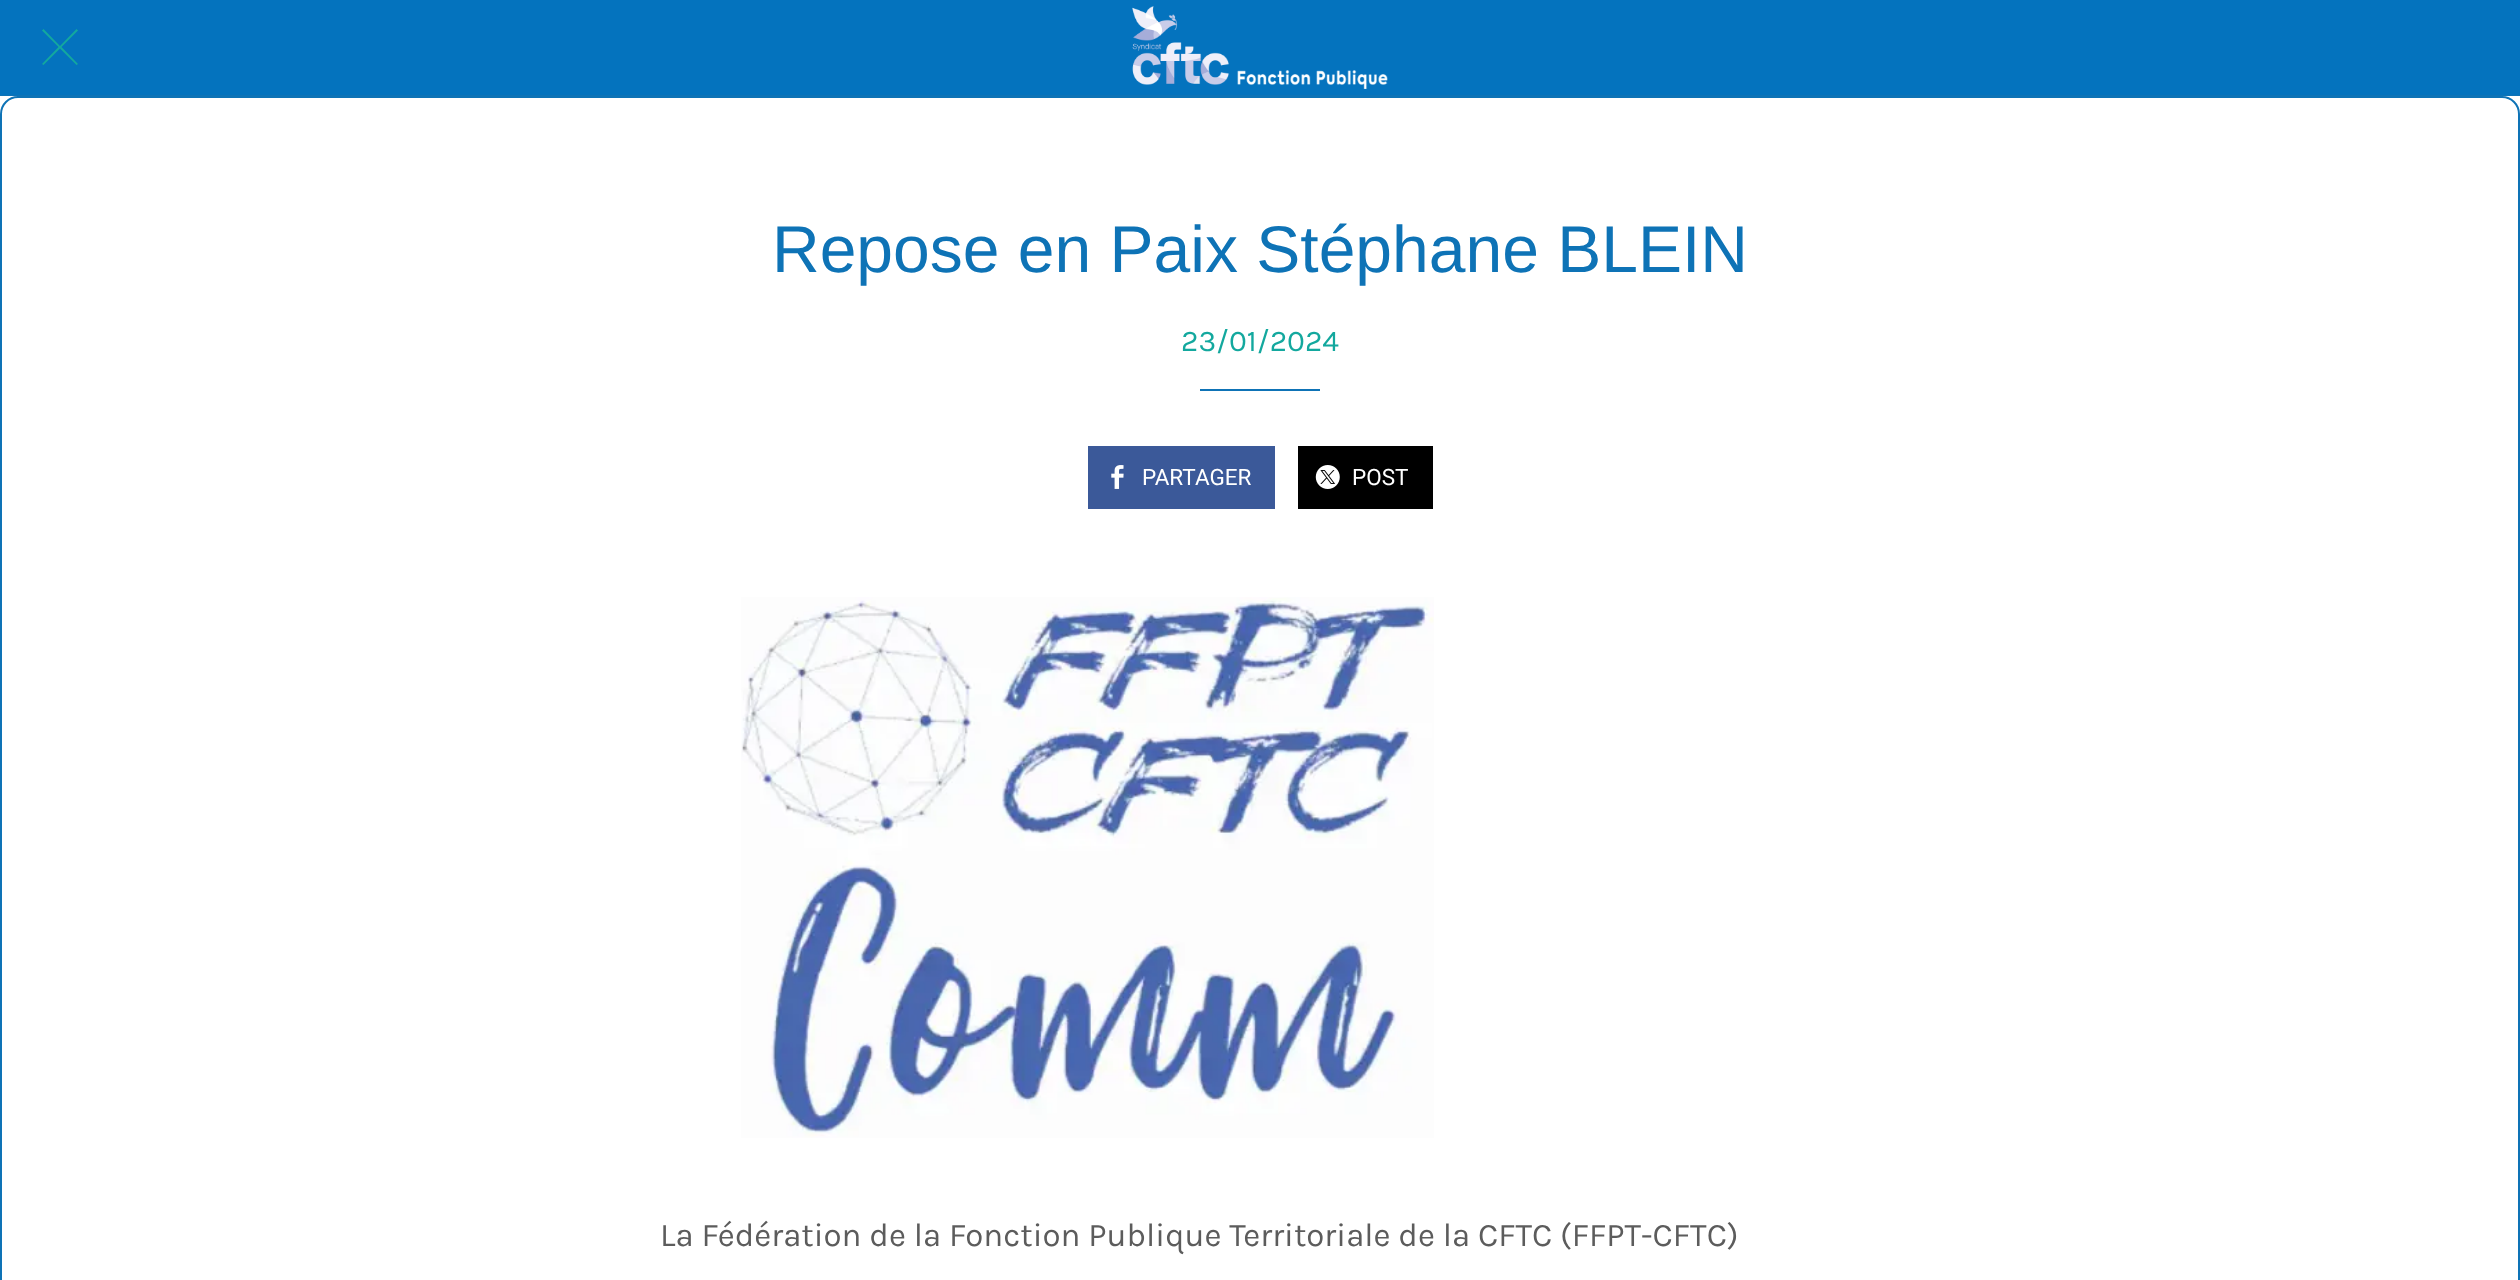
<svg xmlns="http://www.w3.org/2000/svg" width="2520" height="1280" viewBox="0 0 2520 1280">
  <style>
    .t1 { font: 66px Liberation Sans; fill: #0e73b6; }
    .t2 { font: 30px Karla; fill: #13a89e; }
    .t3 { font: 22.5px Roboto; fill: #fff; }
    .t4 { font: 33px Karla; fill: #5c5c5c; }
  </style>
  <rect width="100%" height="100%" fill="#fff"/>
  <rect x="0" y="0" width="2520" height="95" fill="#0473be"/>
  <rect x="0" y="95" width="2520" height="1" fill="#0e73b6"/>
  <path d="M78 30.5L76.5 29L60 46L43.5 29L42 30.5L58.5 47L42 64L43.5 65L60 48.5L76.5 65L78 64L61.5 47Z" fill="#13a89e"/>
  <image x="1132" y="6" width="256" height="83" href="images/1.png"/>
  <path d="M18 97H2502C2511.5 97 2519 104.5 2519 114V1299H1V114C1 104.5 8.5 97 18 97Z" fill="none" stroke="#0e73b6" stroke-width="2"/>
  <text x="772" y="272" class="t1">Repose en Paix Stéphane BLEIN</text>
  <text x="1181" y="351" class="t2">23/01/2024</text>
  <rect x="1200" y="389" width="120" height="2" fill="#0e73b6"/>
  <rect x="1088" y="446" width="187" height="63" fill="#3b5999"/>
  <image x="1111" y="465" width="13" height="24" href="images/2.png"/>
  <text x="1142" y="485" class="t3">PARTAGER</text>
  <rect x="1298" y="446" width="135" height="63" fill="#000"/>
  <image x="1315" y="465" width="25" height="24" href="images/3.png"/>
  <text x="1352" y="485" class="t3">POST</text>
  <image x="741" y="597" width="693" height="541" href="images/4.png"/>
  <text x="660" y="1246" class="t4">La Fédération de la Fonction Publique Territoriale de la CFTC (FFPT-CFTC)</text>
</svg>
